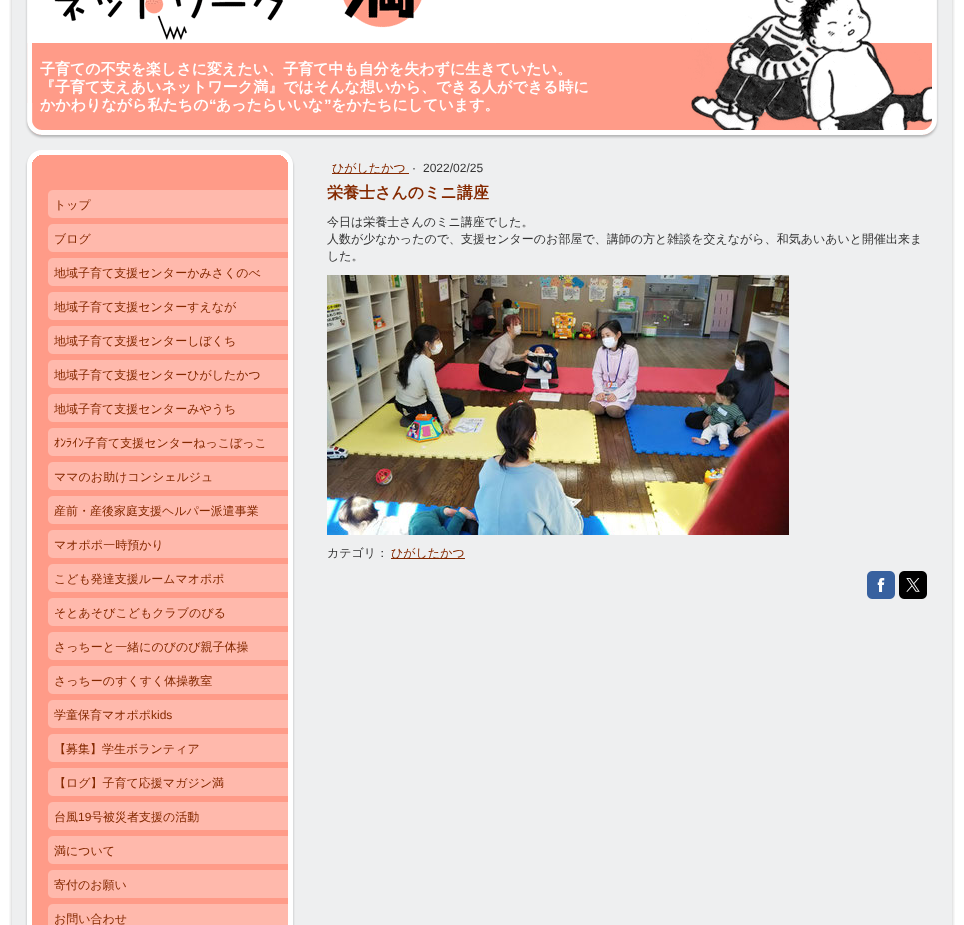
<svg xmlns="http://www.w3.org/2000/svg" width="964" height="925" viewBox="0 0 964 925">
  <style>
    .t1 { font: bold 15px WenQuanYi Zen Hei; fill: #fff; }
    .t2 { font: bold 15px Liberation Sans; fill: #fff; }
    .t3 { font: 500 12px WenQuanYi Zen Hei; fill: #842900; }
    .t4 { font: 12px IPAPGothic; fill: #842900; }
    .t5 { font: 12px Liberation Sans; fill: #842900; }
    .t6 { font: 12px Liberation Sans; fill: #333; }
    .t7 { font: bold 16px WenQuanYi Zen Hei; fill: #842900; }
    .t8 { font: 500 12px WenQuanYi Zen Hei; fill: #333; }
  </style>
  <rect width="100%" height="100%" fill="#fff"/>
  <image x="9" y="0" width="946" height="925" href="images/1.png"/>
  <image x="27" y="0" width="905" height="135" href="images/3.png"/>
  <text x="40" y="110" class="t1">かかわりながら私たちの</text>
  <text x="209" y="110" class="t2">“</text>
  <text x="216" y="110" class="t1">あったらいいな</text>
  <text x="324" y="110" class="t2">”</text>
  <text x="331" y="110" class="t1">をかたちにしています。</text>
  <image x="12" y="103" width="940" height="47" href="images/5.png"/>
  <image x="12" y="0" width="20" height="131" href="images/2.png"/>
  <text x="40" y="74" class="t1">子育ての不安を楽しさに変えたい、子育て中も自分を失わずに生きていたい。</text>
  <text x="40" y="92" class="t1">『子育て支えあいネットワーク満』ではそんな想いから、できる人ができる時に</text>
  <image x="932" y="0" width="20" height="131" href="images/4.png"/>
  <rect x="32" y="155" width="256" height="770" fill="#ff9b88"/>
  <image x="25" y="150" width="270" height="40" href="images/6.png"/>
  <image x="25" y="190" width="270" height="735" href="images/7.png"/>
  <image x="48" y="190" width="240" height="28" href="images/8.png"/>
  <text x="54" y="209" class="t3">トップ</text>
  <image x="48" y="224" width="240" height="28" href="images/8.png"/>
  <text x="54" y="243" class="t3">ブログ</text>
  <image x="48" y="258" width="240" height="28" href="images/8.png"/>
  <text x="54" y="277" class="t3">地域子育て支援センターかみさくのべ</text>
  <image x="48" y="292" width="240" height="28" href="images/8.png"/>
  <text x="54" y="311" class="t3">地域子育て支援センターすえなが</text>
  <image x="48" y="326" width="240" height="28" href="images/8.png"/>
  <text x="54" y="345" class="t3">地域子育て支援センターしぼくち</text>
  <image x="48" y="360" width="240" height="28" href="images/8.png"/>
  <text x="54" y="379" class="t3">地域子育て支援センターひがしたかつ</text>
  <image x="48" y="394" width="240" height="28" href="images/8.png"/>
  <text x="54" y="413" class="t3">地域子育て支援センターみやうち</text>
  <image x="48" y="428" width="240" height="28" href="images/8.png"/>
  <text x="54" y="447" class="t4">ｵﾝﾗｲﾝ</text>
  <text x="84" y="447" class="t3">子育て支援センターねっこぼっこ</text>
  <image x="48" y="462" width="240" height="28" href="images/8.png"/>
  <text x="54" y="481" class="t3">ママのお助けコンシェルジュ</text>
  <image x="48" y="496" width="240" height="28" href="images/8.png"/>
  <text x="54" y="515" class="t3">産前・産後家庭支援ヘルパー派遣事業</text>
  <image x="48" y="530" width="240" height="28" href="images/8.png"/>
  <text x="54" y="549" class="t3">マオポポ一時預かり</text>
  <image x="48" y="564" width="240" height="28" href="images/8.png"/>
  <text x="54" y="583" class="t3">こども発達支援ルームマオポポ</text>
  <image x="48" y="598" width="240" height="28" href="images/8.png"/>
  <text x="54" y="617" class="t3">そとあそびこどもクラブのびる</text>
  <image x="48" y="632" width="240" height="28" href="images/8.png"/>
  <text x="54" y="651" class="t3">さっちーと一緒にのびのび親子体操</text>
  <image x="48" y="666" width="240" height="28" href="images/8.png"/>
  <text x="54" y="685" class="t3">さっちーのすくすく体操教室</text>
  <image x="48" y="700" width="240" height="28" href="images/8.png"/>
  <text x="54" y="719" class="t3">学童保育マオポポ</text>
  <text x="151" y="719" class="t5">kids</text>
  <image x="48" y="734" width="240" height="28" href="images/8.png"/>
  <text x="54" y="753" class="t3">【募集】学生ボランティア</text>
  <image x="48" y="768" width="240" height="28" href="images/8.png"/>
  <text x="54" y="787" class="t3">【ログ】子育て応援マガジン満</text>
  <image x="48" y="802" width="240" height="28" href="images/8.png"/>
  <text x="54" y="821" class="t3">台風</text>
  <text x="78" y="821" class="t5">19</text>
  <text x="91" y="821" class="t3">号被災者支援の活動</text>
  <image x="48" y="836" width="240" height="28" href="images/8.png"/>
  <text x="54" y="855" class="t3">満について</text>
  <image x="48" y="870" width="240" height="28" href="images/8.png"/>
  <text x="54" y="889" class="t3">寄付のお願い</text>
  <image x="48" y="904" width="240" height="21" href="images/9.png"/>
  <text x="54" y="923" class="t3">お問い合わせ</text>
  <rect x="332" y="173" width="77" height="1" fill="#842900"/>
  <text x="332" y="172" class="t3">ひがしたかつ</text>
  <text x="412" y="172" class="t6">·</text>
  <text x="423" y="172" class="t6">2022/02/25</text>
  <text x="327" y="198" class="t7">栄養士さんのミニ講座</text>
  <text x="327" y="226" class="t8">今日は栄養士さんのミニ講座でした。</text>
  <text x="327" y="243" class="t8">人数が少なかったので、支援センターのお部屋で、講師の方と雑談を交えながら、和気あいあいと開催出来ま</text>
  <text x="327" y="260" class="t8">した。</text>
  <image x="327" y="275" width="462" height="260" href="images/10.png"/>
  <text x="327" y="557" class="t8">カテゴリ：</text>
  <rect x="391" y="558" width="74" height="1" fill="#842900"/>
  <text x="391" y="557" class="t3">ひがしたかつ</text>
  <image x="867" y="571" width="28" height="28" href="images/11.png"/>
  <image x="877" y="578" width="8" height="14" href="images/12.png"/>
  <image x="899" y="571" width="28" height="28" href="images/13.png"/>
  <image x="906" y="578" width="14" height="14" href="images/14.png"/>
</svg>
